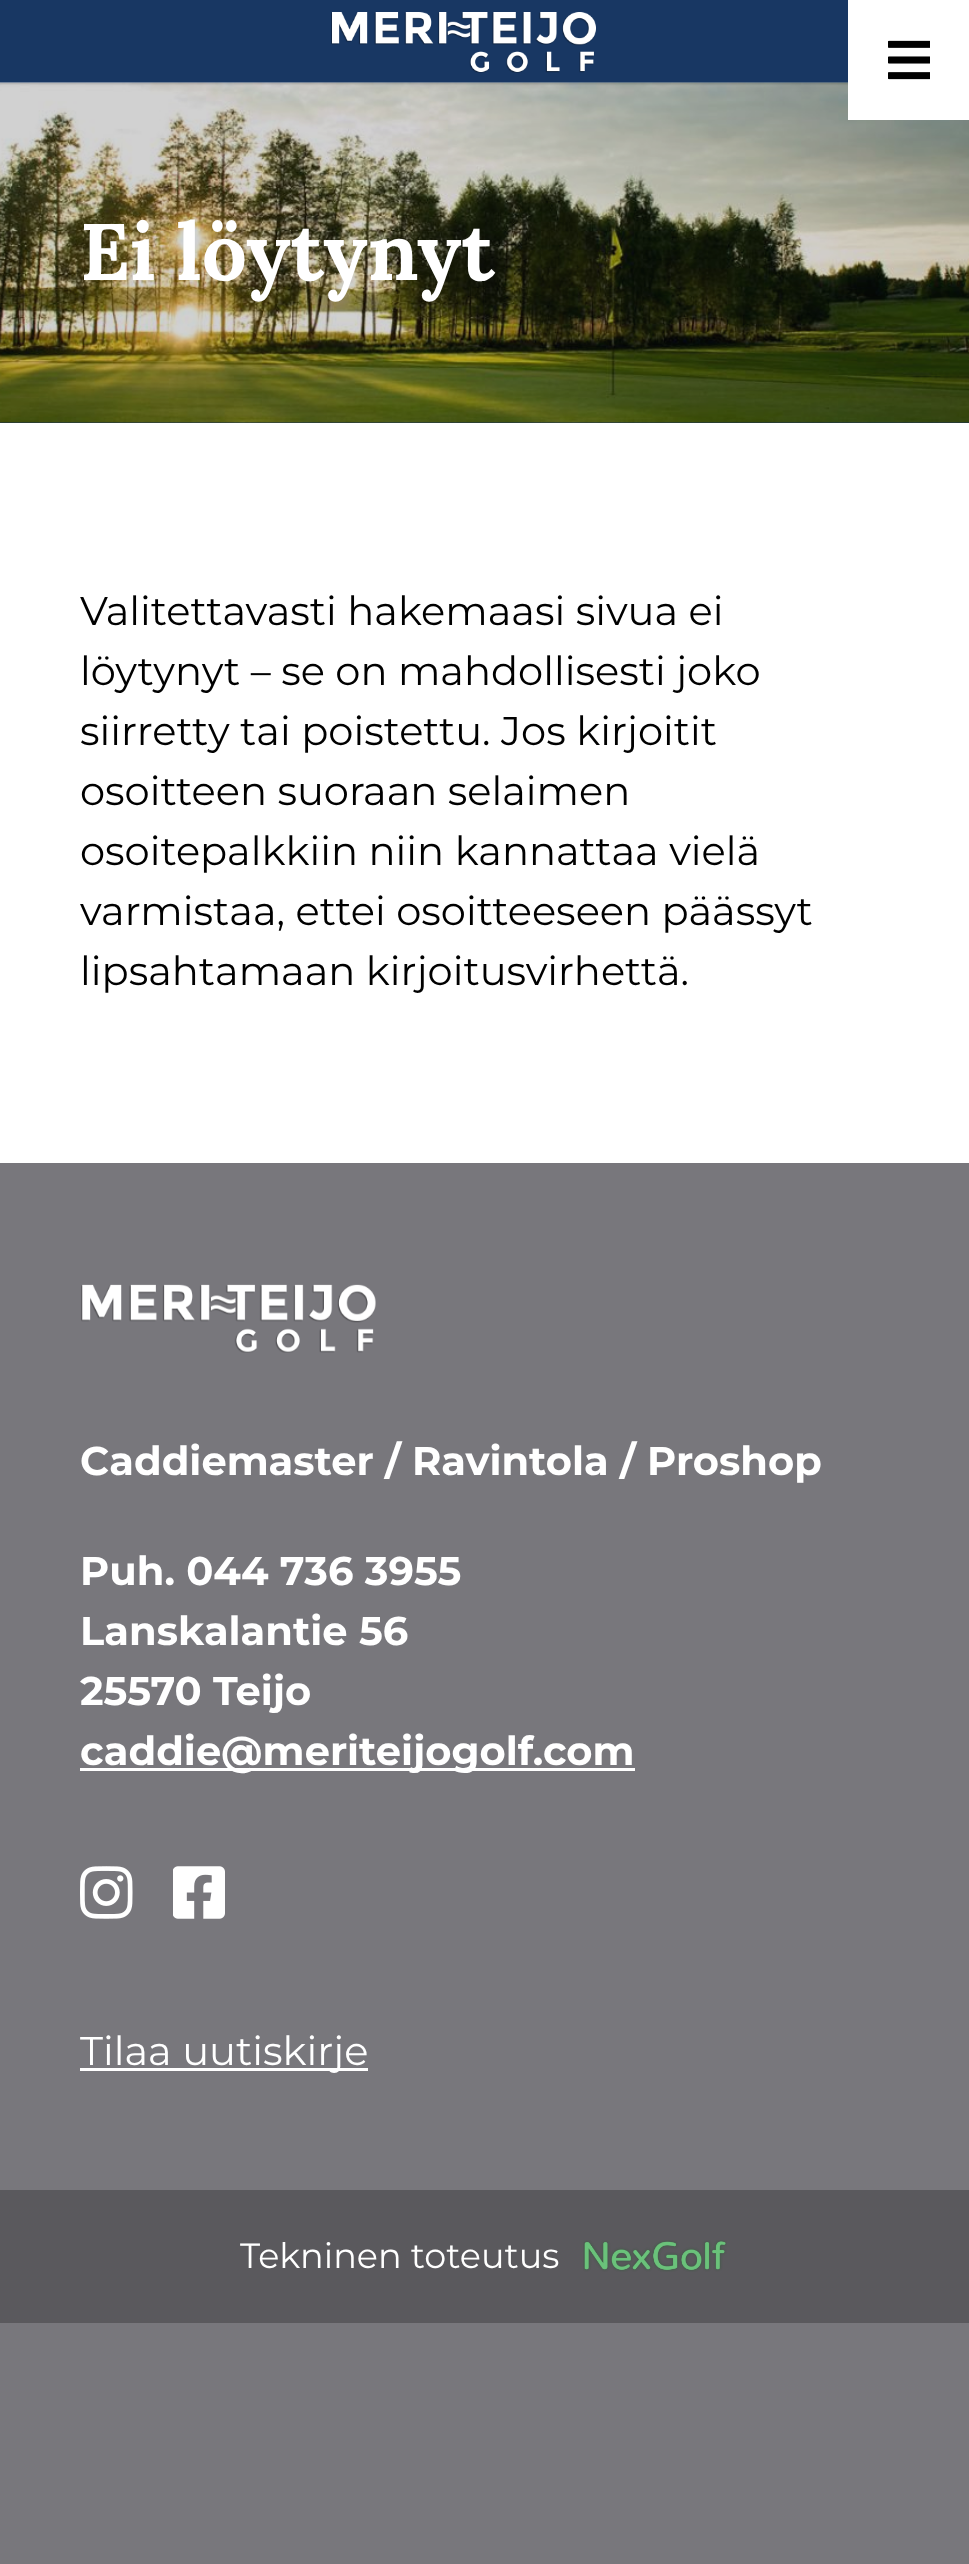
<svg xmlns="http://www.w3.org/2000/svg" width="969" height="2564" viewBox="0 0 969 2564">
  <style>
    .t1 { font: bold 80px Lora; fill: #fff; }
    .t2 { font: 100 40px Montserrat; fill: #000; }
    .t3 { font: 100 40px 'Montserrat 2'; fill: #fff; }
    .t4 { font: 100 40px Montserrat; fill: #fff; }
    .t5 { font: 100 35px Montserrat; fill: #fff; }
  </style>
  <rect width="100%" height="100%" fill="#78777c"/>
  <rect x="0" y="0" width="848" height="83" fill="#183763"/>
  <rect x="0" y="422" width="969" height="1" fill="#183763"/>
  <image x="0" y="82" width="969" height="341" href="images/3.png"/>
  <rect x="0" y="83" width="969" height="340" fill="#18181833"/>
  <rect x="848" y="0" width="121" height="120" fill="#fff"/>
  <image x="888" y="40" width="42" height="40" href="images/1.png"/>
  <image x="331" y="12" width="265" height="61" href="images/2.png"/>
  <text x="80" y="280" class="t1">Ei löytynyt</text>
  <rect x="0" y="423" width="969" height="740" fill="#fff"/>
  <text x="80" y="625" class="t2">Valitettavasti hakemaasi sivua ei</text>
  <text x="80" y="685" class="t2">löytynyt – se on mahdollisesti joko</text>
  <text x="80" y="745" class="t2">siirretty tai poistettu. Jos kirjoitit</text>
  <text x="80" y="805" class="t2">osoitteen suoraan selaimen</text>
  <text x="80" y="865" class="t2">osoitepalkkiin niin kannattaa vielä</text>
  <text x="80" y="925" class="t2">varmistaa, ettei osoitteeseen päässyt</text>
  <text x="80" y="985" class="t2">lipsahtamaan kirjoitusvirhettä.</text>
  <image x="81" y="1284" width="295" height="69" href="images/4.png"/>
  <text x="80" y="1475" class="t3">Caddiemaster / Ravintola / Proshop</text>
  <text x="80" y="1585" class="t3">Puh. 044 736 3955</text>
  <text x="80" y="1645" class="t3">Lanskalantie 56</text>
  <text x="80" y="1705" class="t3">25570 Teijo</text>
  <rect x="80" y="1768" width="555" height="3" fill="#fff"/>
  <text x="80" y="1765" class="t3">caddie@meriteijogolf.com</text>
  <image x="80" y="1866" width="53" height="53" href="images/5.png"/>
  <image x="173" y="1866" width="52" height="53" href="images/6.png"/>
  <rect x="80" y="2068" width="288" height="3" fill="#fff"/>
  <text x="80" y="2065" class="t4">Tilaa uutiskirje</text>
  <rect x="0" y="2190" width="969" height="133" fill="#5a595d"/>
  <text x="240" y="2268" class="t5">Tekninen toteutus</text>
  <image x="583" y="2240" width="144" height="32" href="images/7.png"/>
</svg>
